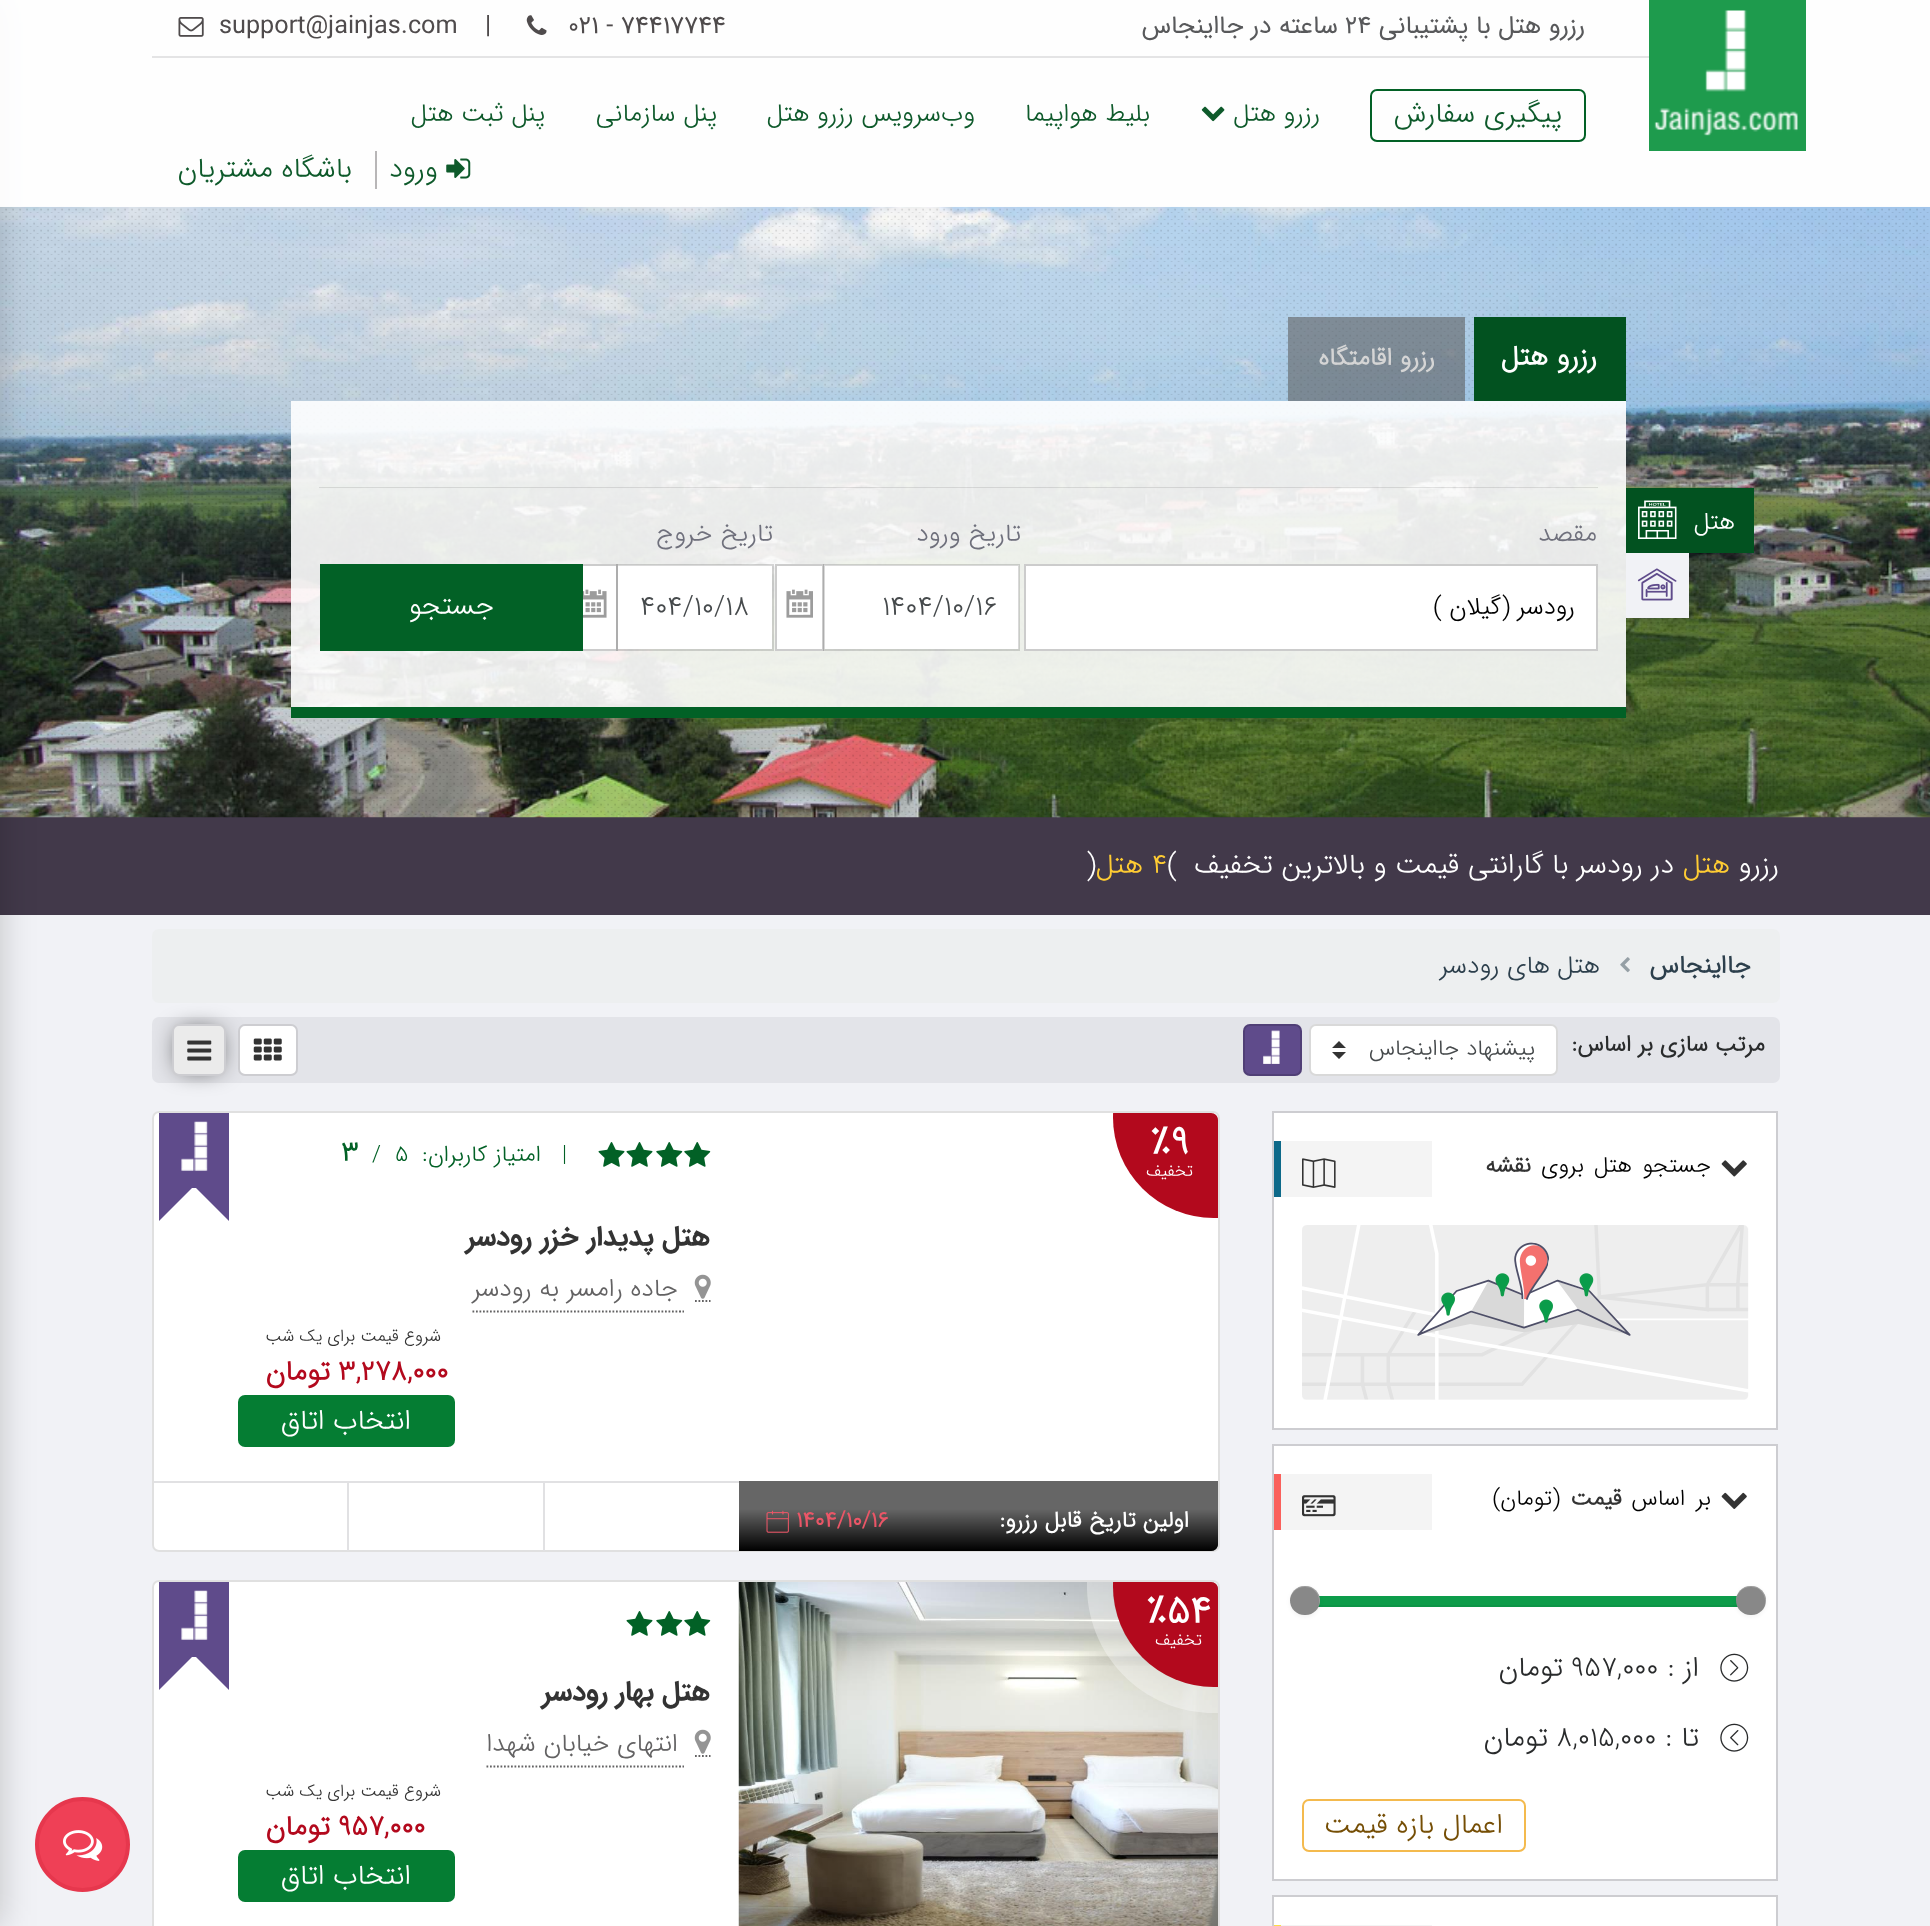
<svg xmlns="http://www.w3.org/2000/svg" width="1930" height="1926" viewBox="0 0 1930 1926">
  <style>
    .t1 { font: 25.25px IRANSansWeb; direction: rtl; fill: #58595b; }
    .t2 { font: 25.25px IRANSansWeb; fill: #58595b; }
    .t3 { font: 25.25px IRANSansWeb; fill: #4f4b4c; }
    .t4 { font: 300 28px IRANSansWeb; direction: rtl; fill: #0e5a2b; }
    .t5 { font: 300 25.25px IRANSansWeb; direction: rtl; fill: #0e5a2b; }
    .t6 { font: bold 28px IRANSansWeb; direction: rtl; fill: #fff; }
    .t7 { font: bold 24.5px IRANSansWeb; direction: rtl; fill: #d5d5d5; }
    .t8 { font: 300 24.5px IRANSansWeb; direction: rtl; fill: #fff; }
    .t9 { font: 300 25.25px IRANSansWeb; direction: rtl; fill: #6f707c; }
    .t10 { font: 300 24.5px IRANSansWeb; direction: rtl; fill: #000; }
    .t11 { font: 300 28px IRANSansWeb; fill: #464a4c; }
    .t12 { font: 300 28px IRANSansWeb; direction: rtl; fill: #fff; }
    .t13 { font: 300 28px IRANSansWeb; direction: rtl; fill: #fc3; }
    .t14 { font: 300 28px IRANSansWeb; fill: #fff; }
    .t15 { font: 300 28px IRANSansWeb; fill: #fc3; }
    .t16 { font: bold 25.25px IRANSansWeb; direction: rtl; fill: #2c3f4c; }
    .t17 { font: 300 25.25px IRANSansWeb; direction: rtl; fill: #2c3f4c; }
    .t18 { font: bold 22.5px IRANSansWeb; direction: rtl; fill: #292b2c; }
    .t19 { font: 300 22.5px IRANSansWeb; direction: rtl; fill: #464a4c; }
    .t20 { font: 300 22.5px IRANSansWeb; direction: rtl; fill: #000; }
    .t21 { font: bold 22.5px IRANSansWeb; direction: rtl; fill: #333; }
    .t22 { font: 300 28px IRANSansWeb; direction: rtl; fill: #292b2c; }
    .t23 { font: 300 28px IRANSansWeb; fill: #292b2c; }
    .t24 { font: 300 28px IRANSansWeb; direction: rtl; fill: #754e05; }
    .t25 { font: bold 39px IRANSansWeb; fill: #fff; }
    .t26 { font: 300 16.75px IRANSansWeb; direction: rtl; fill: #fff; }
    .t27 { font: bold 22.5px IRANSansWeb; direction: rtl; fill: #fff; }
    .t28 { font: bold 22.5px IRANSansWeb; fill: #ea5667; }
    .t29 { font: 300 22.5px IRANSansWeb; fill: #026126; }
    .t30 { font: 300 22.5px IRANSansWeb; direction: rtl; fill: #026126; }
    .t31 { font: bold 28px IRANSansWeb; fill: #026126; }
    .t32 { font: bold 28px 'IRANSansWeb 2'; direction: rtl; fill: #333; }
    .t33 { font: 300 25.25px IRANSansWeb; direction: rtl; fill: #636263; }
    .t34 { font: 300 16.75px IRANSansWeb; direction: rtl; fill: #333; }
    .t35 { font: bold 28px IRANSansWeb; fill: #b3091d; }
    .t36 { font: bold 28px IRANSansWeb; direction: rtl; fill: #b3091d; }
  </style>
  <defs>
    <clipPath id="clip1"><path d="M739 1113H1211C1215 1113 1218 1116 1218 1120V1544C1218 1548 1215 1551 1211 1551H739Z"/></clipPath>
    <linearGradient id="g1" gradientUnits="userSpaceOnUse" x1="978" y1="1551" x2="978" y2="1481"><stop offset="0" stop-color="#000"/><stop offset="0.6" stop-color="#000" stop-opacity="0"/></linearGradient>
    <clipPath id="clip2"><path d="M739 1582H1211C1215 1582 1218 1585 1218 1589V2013C1218 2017 1215 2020 1211 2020H739Z"/></clipPath>
  </defs>
  <rect width="100%" height="100%" fill="#f1f2f6"/>
  <rect x="0" y="817" width="1930" height="98" fill="#42394a"/>
  <image x="0" y="206" width="1930" height="612" href="images/6.png"/>
  <image x="1" y="208" width="1928" height="607" href="images/7.png"/>
  <rect x="-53" y="0" width="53" height="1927" fill="#00000033" filter="blur(17.5px)"/>
  <rect x="0" y="0" width="1930" height="207" fill="#ffffffe6"/>
  <rect x="1649" y="0" width="157" height="151" fill="#1e9b4d"/>
  <image x="1654" y="10" width="144" height="126" href="images/1.png"/>
  <rect x="152" y="56" width="1497" height="2" fill="#e4e4e5"/>
  <text x="1585" y="33" class="t1">رزرو هتل با پشتیبانی</text>
  <text x="1345" y="33" class="t2">۲۴</text>
  <text x="1338" y="33" class="t1">ساعته در جااینجاس</text>
  <text x="568" y="33" class="t3">۰۲۱ - ۷۴۴۱۷۷۴۴</text>
  <image x="526" y="15" width="21" height="20" href="images/2.png"/>
  <text x="485" y="33" class="t3">|</text>
  <text x="219" y="33" class="t3">support@jainjas.com</text>
  <image x="178" y="17" width="26" height="20" href="images/3.png"/>
  <rect x="1371" y="90" width="214" height="51" rx="6" fill="none" stroke="#026126" stroke-width="2"/>
  <text x="1562" y="122" class="t4">پیگیری سفارش</text>
  <text x="1320" y="121" class="t5">رزرو هتل</text>
  <image x="1201" y="106" width="24" height="16" href="images/4.png"/>
  <text x="1150" y="121" class="t5">بلیط هواپیما</text>
  <text x="975" y="121" class="t5">وب‌سرویس رزرو هتل</text>
  <text x="717" y="121" class="t5">پنل سازمانی</text>
  <text x="545" y="121" class="t5">پنل ثبت هتل</text>
  <image x="446" y="158" width="25" height="21" href="images/5.png"/>
  <text x="438" y="177" class="t4">ورود</text>
  <rect x="375" y="151" width="2" height="38" fill="#b8b6b7"/>
  <text x="352" y="177" class="t4">باشگاه مشتریان</text>
  <rect x="1474" y="317" width="152" height="84" fill="#025220"/>
  <text x="1597" y="365" class="t6">رزرو هتل</text>
  <rect x="1288" y="317" width="177" height="84" fill="#5b5b5b94"/>
  <text x="1435" y="365" class="t7">رزرو اقامتگاه</text>
  <rect x="291" y="707" width="1335" height="11" fill="#026126"/>
  <rect x="291" y="401" width="1335" height="87" fill="#ffffffe6"/>
  <rect x="319" y="487" width="1279" height="2" fill="#0000001a"/>
  <rect x="291" y="488" width="1335" height="219" fill="#ffffffe6"/>
  <rect x="1626" y="488" width="128" height="65" fill="#025220"/>
  <text x="1735" y="529" class="t8">هتل</text>
  <image x="1638" y="500" width="39" height="39" href="images/8.png"/>
  <rect x="1626" y="553" width="63" height="65" fill="#f1f2f6"/>
  <image x="1637" y="568" width="40" height="33" href="images/9.png"/>
  <text x="1597" y="541" class="t9">مقصد</text>
  <rect x="1025" y="565" width="572" height="85" fill="#fff" stroke="#ccc" stroke-width="2"/>
  <text x="1575" y="614" class="t10">رودسر (گیلان )</text>
  <text x="1021" y="541" class="t9">تاریخ ورود</text>
  <rect x="824" y="565" width="195" height="84" fill="#fff"/>
  <rect x="776" y="565" width="47" height="85" fill="#fff" stroke="#ccc" stroke-width="2"/>
  <rect x="824" y="565" width="195" height="85" fill="none" stroke="#00000026" stroke-width="2"/>
  <text x="882" y="615" class="t11">۱۴۰۴/۱۰/۱۶</text>
  <image x="786" y="589" width="27" height="29" href="images/10.png"/>
  <text x="773" y="541" class="t9">تاریخ خروج</text>
  <rect x="618" y="565" width="154" height="84" fill="#fff"/>
  <rect x="583" y="566" width="33" height="83" fill="#fff"/>
  <rect x="570" y="565" width="47" height="85" fill="none" stroke="#ccc" stroke-width="2"/>
  <rect x="617" y="565" width="156" height="85" fill="none" stroke="#00000026" stroke-width="2"/>
  <text x="640" y="615" class="t11">۴۰۴/۱۰/۱۸</text>
  <image x="583" y="589" width="24" height="29" href="images/11.png"/>
  <rect x="320" y="564" width="263" height="87" fill="#026126"/>
  <text x="494" y="614" class="t12">جستجو</text>
  <text x="1779" y="873" class="t12">رزرو</text>
  <text x="1730" y="873" class="t13">هتل</text>
  <text x="1674" y="873" class="t12">در رودسر با گارانتی قیمت و بالاترین تخفیف</text>
  <text x="1167" y="873" class="t14">(‌</text>
  <text x="1152" y="873" class="t15">۴</text>
  <text x="1143" y="873" class="t13">هتل</text>
  <text x="1086" y="873" class="t14">)</text>
  <rect x="152" y="929" width="1628" height="74" rx="7" fill="#edeff0"/>
  <text x="1751" y="973" class="t16">جااینجاس</text>
  <image x="1620" y="957" width="10" height="16" href="images/12.png"/>
  <text x="1600" y="973" class="t17">هتل</text>
  <text x="1550" y="973" class="t17">های رودسر</text>
  <rect x="1273" y="1112" width="504" height="317" fill="#fff" stroke="#cdcdd1" stroke-width="2"/>
  <rect x="1281" y="1141" width="151" height="56" fill="#f4f4f4"/>
  <rect x="1274" y="1141" width="7" height="56" fill="#0d6989"/>
  <image x="1302" y="1158" width="34" height="30" href="images/17.png"/>
  <rect x="152" y="1111" width="1068" height="441" rx="7" fill="#fff"/>
  <rect x="153" y="1112" width="1066" height="439" rx="6" fill="none" stroke="#0000001f" stroke-width="2"/>
  <g clip-path="url(#clip1)">
    <circle cx="1213.5" cy="1117.5" r="100.5" fill="#b3091d"/>
  </g>
  <rect x="152" y="1017" width="1628" height="66" rx="7" fill="#e3e4e9"/>
  <text x="1765" y="1051" class="t18">مرتب سازی بر اساس:</text>
  <rect x="1309" y="1024" width="249" height="52" rx="7" fill="#fff"/>
  <path d="M1339 1041L1332 1048H1346ZM1339 1059L1332 1052H1346Z" fill="#333"/>
  <rect x="1310" y="1025" width="247" height="50" rx="6" fill="none" stroke="#00000026" stroke-width="2"/>
  <text x="1535" y="1055" class="t19">پیشنهاد جااینجاس</text>
  <rect x="1243" y="1024" width="59" height="52" rx="7" fill="#5f4b8b"/>
  <rect x="1244" y="1025" width="57" height="50" rx="6" fill="none" stroke="#00000026" stroke-width="2"/>
  <image x="1263" y="1030" width="17" height="34" href="images/13.png"/>
  <rect x="179" y="1031" width="40" height="38" fill="#000000b8" filter="blur(11.5px)"/>
  <rect x="239" y="1025" width="58" height="50" rx="6" fill="#fff" stroke="#cdcdd1" stroke-width="2"/>
  <image x="253" y="1038" width="29" height="23" href="images/14.png"/>
  <rect x="173" y="1025" width="52" height="50" rx="6" fill="#ebebeb" stroke="#cdcdd1" stroke-width="2"/>
  <image x="187" y="1040" width="25" height="21" href="images/15.png"/>
  <text x="1632" y="1172" class="t20">هتل</text>
  <text x="1531" y="1172" class="t21">نقشه</text>
  <image x="1721" y="1160" width="26" height="17" href="images/16.png"/>
  <text x="1711" y="1172" class="t20">جستجو</text>
  <text x="1584" y="1172" class="t20">بروی</text>
  <image x="1302" y="1225" width="447" height="175" href="images/18.png"/>
  <image x="1302" y="1225" width="446" height="175" href="images/19.png"/>
  <image x="1579" y="1273" width="15" height="24" href="images/20.png"/>
  <image x="1539" y="1299" width="14" height="24" href="images/23.png"/>
  <image x="1514" y="1242" width="35" height="58" href="images/21.png"/>
  <image x="1495" y="1273" width="15" height="24" href="images/22.png"/>
  <image x="1441" y="1292" width="14" height="24" href="images/24.png"/>
  <rect x="1273" y="1445" width="504" height="435" fill="#fff" stroke="#cdcdd1" stroke-width="2"/>
  <image x="1721" y="1492" width="26" height="17" href="images/25.png"/>
  <text x="1711" y="1505" word-spacing="4" class="t20">بر اساس</text>
  <text x="1622" y="1505" class="t21">قیمت</text>
  <text x="1560" y="1505" class="t20">(تومان)</text>
  <rect x="1281" y="1474" width="151" height="56" fill="#f4f4f4"/>
  <rect x="1274" y="1474" width="7" height="56" fill="#fa605b"/>
  <image x="1302" y="1495" width="34" height="22" href="images/26.png"/>
  <rect x="1318" y="1596" width="420" height="11" fill="#0d9c4a"/>
  <path d="M1302 1601V1604C1303 1606 1305 1607 1308 1607H1742L1746 1606C1747 1605 1748 1603 1748 1601C1748 1603 1746 1605 1743 1605H1307C1304 1605 1302 1603 1302 1601Z" fill="#0000000a"/>
  <rect x="1736" y="1587" width="30" height="30" rx="15" fill="#0000000d" filter="blur(2px)"/>
  <rect x="1736" y="1586" width="30" height="29" rx="14.5" fill="#888"/>
  <path d="M1751 1587C1762.5 1587 1767 1598 1764.5 1606.5C1766 1604 1766.5 1600.5 1765.5 1597.5C1762 1580 1735 1583.5 1736 1601C1736.5 1594 1741.5 1587 1751 1587Z" fill="#ffffff33"/>
  <rect x="1290" y="1587" width="30" height="30" rx="15" fill="#0000000d" filter="blur(2px)"/>
  <rect x="1290" y="1586" width="30" height="29" rx="14.5" fill="#888"/>
  <path d="M1305 1587C1316.5 1587 1321 1598 1318.5 1606.5C1320 1604 1320.5 1600.5 1319.5 1597.5C1316 1580 1289 1583.5 1290 1601C1290.5 1594 1295.5 1587 1305 1587Z" fill="#ffffff33"/>
  <image x="1720" y="1653" width="29" height="29" href="images/27.png"/>
  <text x="1699" y="1676" class="t22">از :</text>
  <text x="1571" y="1676" class="t23">۹۵۷,۰۰۰</text>
  <text x="1563" y="1676" class="t22">تومان</text>
  <image x="1720" y="1723" width="29" height="29" href="images/28.png"/>
  <text x="1699" y="1746" class="t22">تا :</text>
  <text x="1556" y="1746" class="t23">۸,۰۱۵,۰۰۰</text>
  <text x="1548" y="1746" class="t22">تومان</text>
  <rect x="1303" y="1800" width="222" height="51" rx="6" fill="none" stroke="#f4ba4e" stroke-width="2"/>
  <text x="1503" y="1833" class="t24">اعمال بازه قیمت</text>
  <rect x="1273" y="1896" width="504" height="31" fill="#fff" stroke="#cdcdd1" stroke-width="2"/>
  <rect x="1274" y="1925" width="158" height="1" fill="#f4f4f4"/>
  <rect x="1274" y="1925" width="7" height="1" fill="#fddd47"/>
  <text x="1150" y="1154" class="t25">٪۹</text>
  <text x="1193" y="1176" class="t26">تخفیف</text>
  <path d="M739 1481H1218V1544C1218 1548 1215 1551 1211 1551H739Z" fill="url(#g1)"/>
  <path d="M739 1481H1218V1544C1218 1548 1215 1551 1211 1551H739Z" fill="#00000099"/>
  <text x="1189" y="1527" class="t27">اولین تاریخ قابل رزرو:</text>
  <text x="796" y="1527" class="t28">۱۴۰۴/۱۰/۱۶</text>
  <image x="766" y="1510" width="23" height="23" href="images/29.png"/>
  <image x="684" y="1142" width="27" height="25" href="images/30.png"/>
  <image x="656" y="1142" width="27" height="25" href="images/30.png"/>
  <image x="626" y="1142" width="27" height="25" href="images/31.png"/>
  <image x="598" y="1142" width="27" height="25" href="images/31.png"/>
  <text x="562" y="1161" class="t29">|</text>
  <text x="541" y="1161" class="t30">امتیاز کاربران:</text>
  <text x="395" y="1161" class="t29">۵</text>
  <text x="372" y="1161" class="t29">/</text>
  <text x="341" y="1161" class="t31">۳</text>
  <rect x="159" y="1113" width="70" height="75" fill="#5f4b8b"/>
  <image x="181" y="1121" width="27" height="50" href="images/32.png"/>
  <path d="M159 1221V1186H194Z" fill="#5f4b8b"/>
  <path d="M229 1186V1221L194 1186Z" fill="#5f4b8b"/>
  <text x="710" y="1245" class="t32">هتل</text>
  <text x="654" y="1245" class="t32">پدیدار خزر</text>
  <text x="532" y="1245" class="t32">رودسر</text>
  <path d="M695 1301H710.5" fill="none" stroke="#636263" stroke-width="1.8" stroke-dasharray="1.75 1.75"/>
  <path d="M679 1311.5H681M682.5 1311.5H684" fill="none" stroke="#636263" stroke-width="1.8"/>
  <path d="M472.5 1311.5H679" fill="none" stroke="#636263" stroke-width="1.8" stroke-dasharray="1.75 1.75"/>
  <image x="694" y="1274" width="17" height="25" href="images/33.png"/>
  <text x="678" y="1296" class="t33">جاده رامسر به رودسر</text>
  <text x="441" y="1341" class="t34">شروع قیمت برای یک شب</text>
  <text x="338" y="1380" class="t35">۳,۲۷۸,۰۰۰</text>
  <text x="330" y="1380" class="t36">تومان</text>
  <rect x="238" y="1395" width="217" height="52" rx="7" fill="#057d33"/>
  <text x="411" y="1429" class="t12">انتخاب اتاق</text>
  <rect x="154" y="1481" width="585" height="2" fill="#e1e1e3"/>
  <rect x="543" y="1481" width="2" height="70" fill="#e1e1e3"/>
  <rect x="347" y="1481" width="2" height="70" fill="#e1e1e3"/>
  <rect x="152" y="1580" width="1068" height="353" rx="7" fill="#fff"/>
  <rect x="153" y="1581" width="1066" height="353" rx="6" fill="none" stroke="#0000001f" stroke-width="2"/>
  <image x="738" y="1582" width="480" height="344" href="images/34.png"/>
  <path d="M1218 1713C1145 1715 1085 1656 1087 1582H1113C1110 1641 1159 1689 1218 1687Z" fill="#ffffff59"/>
  <g clip-path="url(#clip2)">
    <circle cx="1213.5" cy="1586.5" r="100.5" fill="#b3091d"/>
  </g>
  <text x="1146" y="1623" class="t25">٪۵۴</text>
  <text x="1202" y="1645" class="t26">تخفیف</text>
  <image x="684" y="1611" width="27" height="25" href="images/30.png"/>
  <image x="656" y="1611" width="27" height="25" href="images/30.png"/>
  <image x="626" y="1611" width="27" height="25" href="images/31.png"/>
  <rect x="159" y="1582" width="70" height="75" fill="#5f4b8b"/>
  <image x="181" y="1590" width="27" height="50" href="images/32.png"/>
  <path d="M159 1690V1655H194Z" fill="#5f4b8b"/>
  <path d="M229 1655V1690L194 1655Z" fill="#5f4b8b"/>
  <text x="710" y="1700" class="t32">هتل</text>
  <text x="654" y="1700" class="t32">بهار</text>
  <text x="608" y="1700" class="t32">رودسر</text>
  <path d="M695 1756H710.5" fill="none" stroke="#636263" stroke-width="1.8" stroke-dasharray="1.75 1.75"/>
  <path d="M679 1766.5H681M682.5 1766.5H684" fill="none" stroke="#636263" stroke-width="1.8"/>
  <path d="M486.5 1766.5H679" fill="none" stroke="#636263" stroke-width="1.8" stroke-dasharray="1.75 1.75"/>
  <image x="694" y="1729" width="17" height="25" href="images/33.png"/>
  <text x="678" y="1751" class="t33">انتهای خیابان شهدا</text>
  <text x="441" y="1796" class="t34">شروع قیمت برای یک شب</text>
  <text x="338" y="1835" class="t35">۹۵۷,۰۰۰</text>
  <text x="330" y="1835" class="t36">تومان</text>
  <rect x="238" y="1850" width="217" height="52" rx="7" fill="#057d33"/>
  <text x="411" y="1884" class="t12">انتخاب اتاق</text>
  <circle cx="82.5" cy="1844.5" r="45.5" fill="#ef4056" stroke="#e6374d" stroke-width="4"/>
  <image x="63" y="1830" width="40" height="31" href="images/35.png"/>
</svg>
